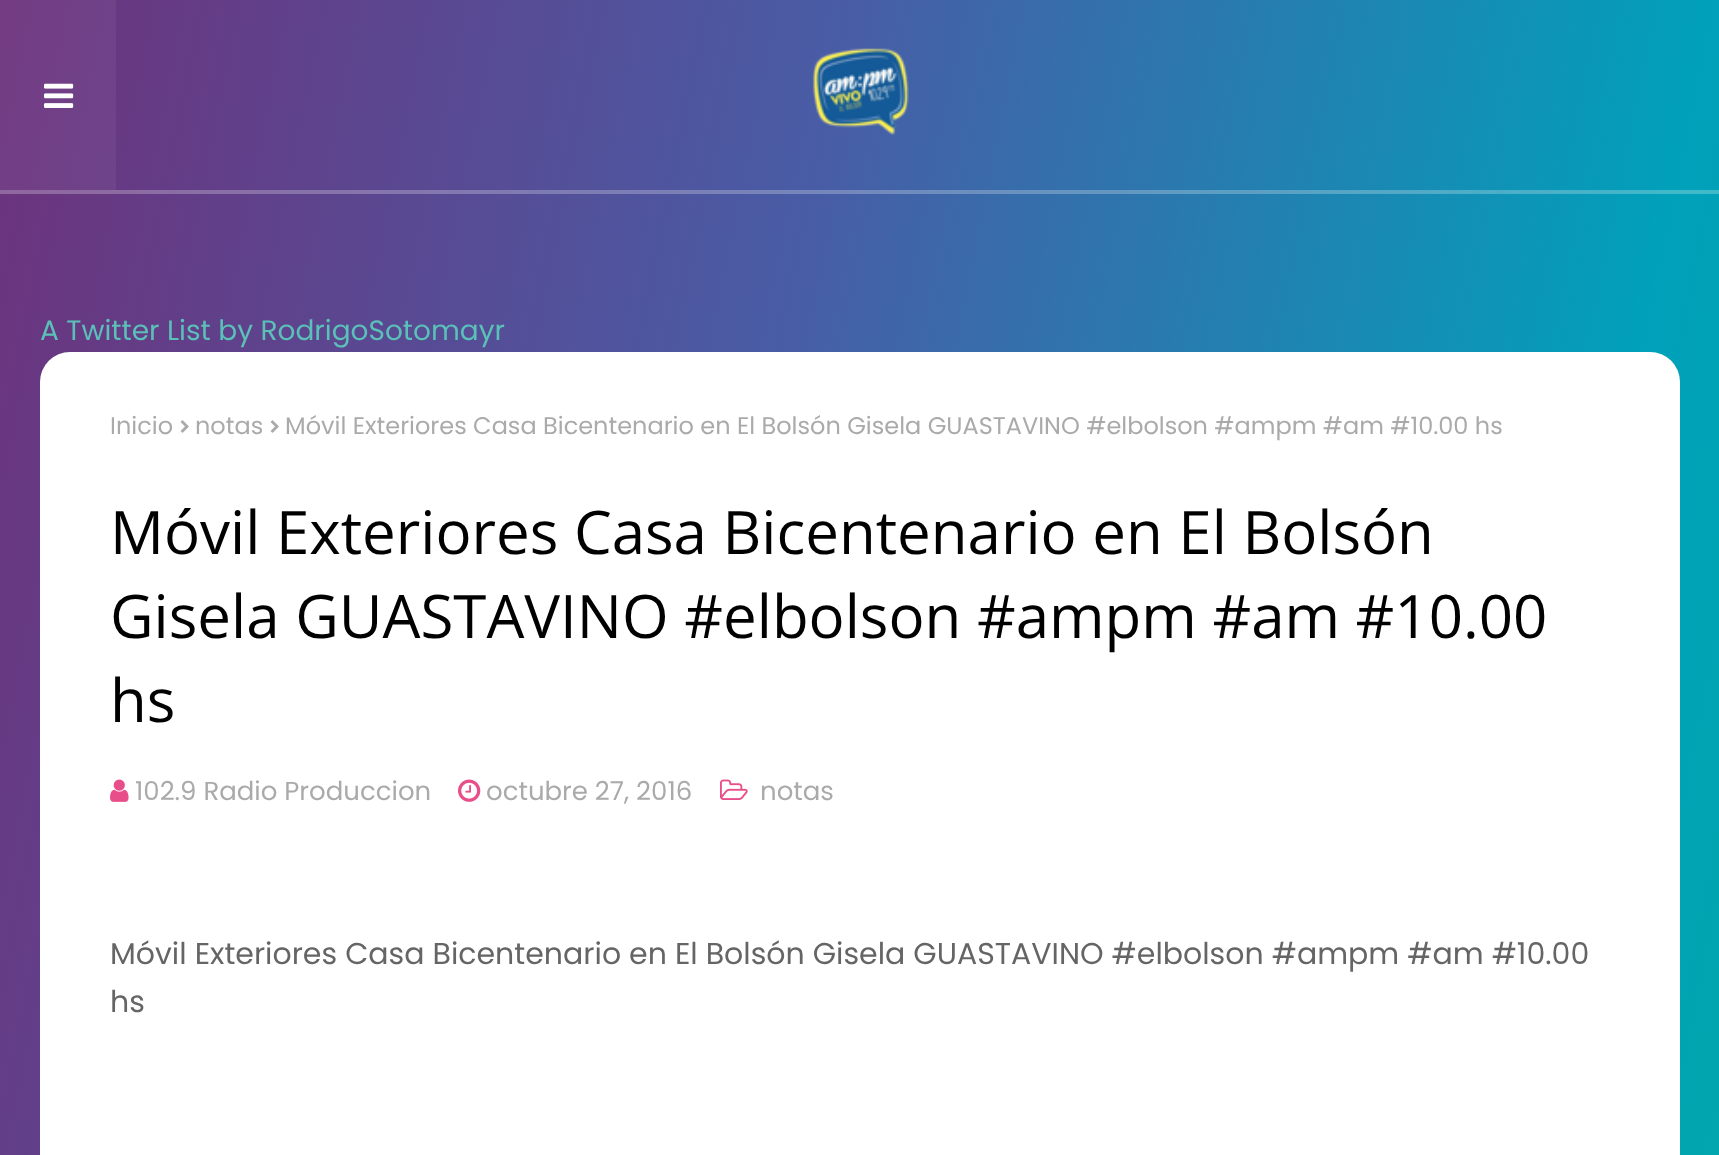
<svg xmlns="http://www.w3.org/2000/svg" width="1719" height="1155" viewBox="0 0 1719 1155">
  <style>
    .t1 { font: 28px Poppins; fill: #5ac0b8; }
    .t2 { font: 24px Poppins; fill: #aaa; }
    .t3 { font: 60px Open Sans; fill: #000; }
    .t4 { font: 26px Poppins; fill: #aaa; }
    .t5 { font: 30px Poppins; fill: #656565; }
  </style>
  <defs>
    <linearGradient id="g1" gradientUnits="userSpaceOnUse" x1="-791" y1="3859" x2="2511" y2="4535"><stop offset="0" stop-color="#6d327c"/><stop offset="0.25" stop-color="#485da6"/><stop offset="0.5" stop-color="#00a1ba"/><stop offset="0.75" stop-color="#01b18e"/><stop offset="1" stop-color="#32b37b"/></linearGradient>
    <linearGradient id="g2" gradientUnits="userSpaceOnUse" x1="-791" y1="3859" x2="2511" y2="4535"><stop offset="0" stop-color="#743c83"/><stop offset="0.25" stop-color="#5165aa"/><stop offset="0.5" stop-color="#0da6bd"/><stop offset="0.75" stop-color="#0eb594"/><stop offset="1" stop-color="#3cb782"/></linearGradient>
    <linearGradient id="g3" gradientUnits="userSpaceOnUse" x1="-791" y1="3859" x2="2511" y2="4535"><stop offset="0" stop-color="#92659d"/><stop offset="0.25" stop-color="#7686bc"/><stop offset="0.5" stop-color="#40b9cb"/><stop offset="0.75" stop-color="#41c5aa"/><stop offset="1" stop-color="#65c69c"/></linearGradient>
  </defs>
  <rect width="100%" height="100%" fill="#fff"/>
  <rect x="0" y="0" width="1719" height="1155" fill="url(#g1)"/>
  <rect x="0" y="0" width="116" height="190" fill="url(#g2)"/>
  <rect x="0" y="190" width="1719" height="4" fill="url(#g3)"/>
  <image x="44" y="83" width="30" height="25" href="images/1.png"/>
  <image x="812" y="48" width="97" height="87" href="images/2.png"/>
  <text x="40" y="340" class="t1">A Twitter List by RodrigoSotomayr</text>
  <rect x="40" y="352" width="1640" height="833" rx="30" fill="#fff"/>
  <text x="110" y="434" class="t2">Inicio</text>
  <image x="180" y="420" width="9" height="13" href="images/3.png"/>
  <text x="195" y="434" class="t2">notas</text>
  <image x="270" y="420" width="9" height="13" href="images/3.png"/>
  <text x="285" y="434" class="t2">Móvil Exteriores Casa Bicentenario en El Bolsón Gisela GUASTAVINO #elbolson #ampm #am #10.00 hs</text>
  <text x="110" y="554" class="t3">Móvil Exteriores Casa Bicentenario en El Bolsón</text>
  <text x="110" y="638" class="t3">Gisela GUASTAVINO #elbolson #ampm #am #10.00</text>
  <text x="110" y="722" class="t3">hs</text>
  <image x="110" y="779" width="19" height="23" href="images/4.png"/>
  <text x="135" y="800" class="t4">102.9 Radio Produccion</text>
  <image x="458" y="779" width="23" height="23" href="images/5.png"/>
  <text x="486" y="800" class="t4">octubre 27, 2016</text>
  <image x="720" y="779" width="28" height="21" href="images/6.png"/>
  <text x="760" y="800" class="t4">notas</text>
  <text x="110" y="964" class="t5">Móvil Exteriores Casa Bicentenario en El Bolsón Gisela GUASTAVINO #elbolson #ampm #am #10.00</text>
  <text x="110" y="1012" class="t5">hs</text>
</svg>
